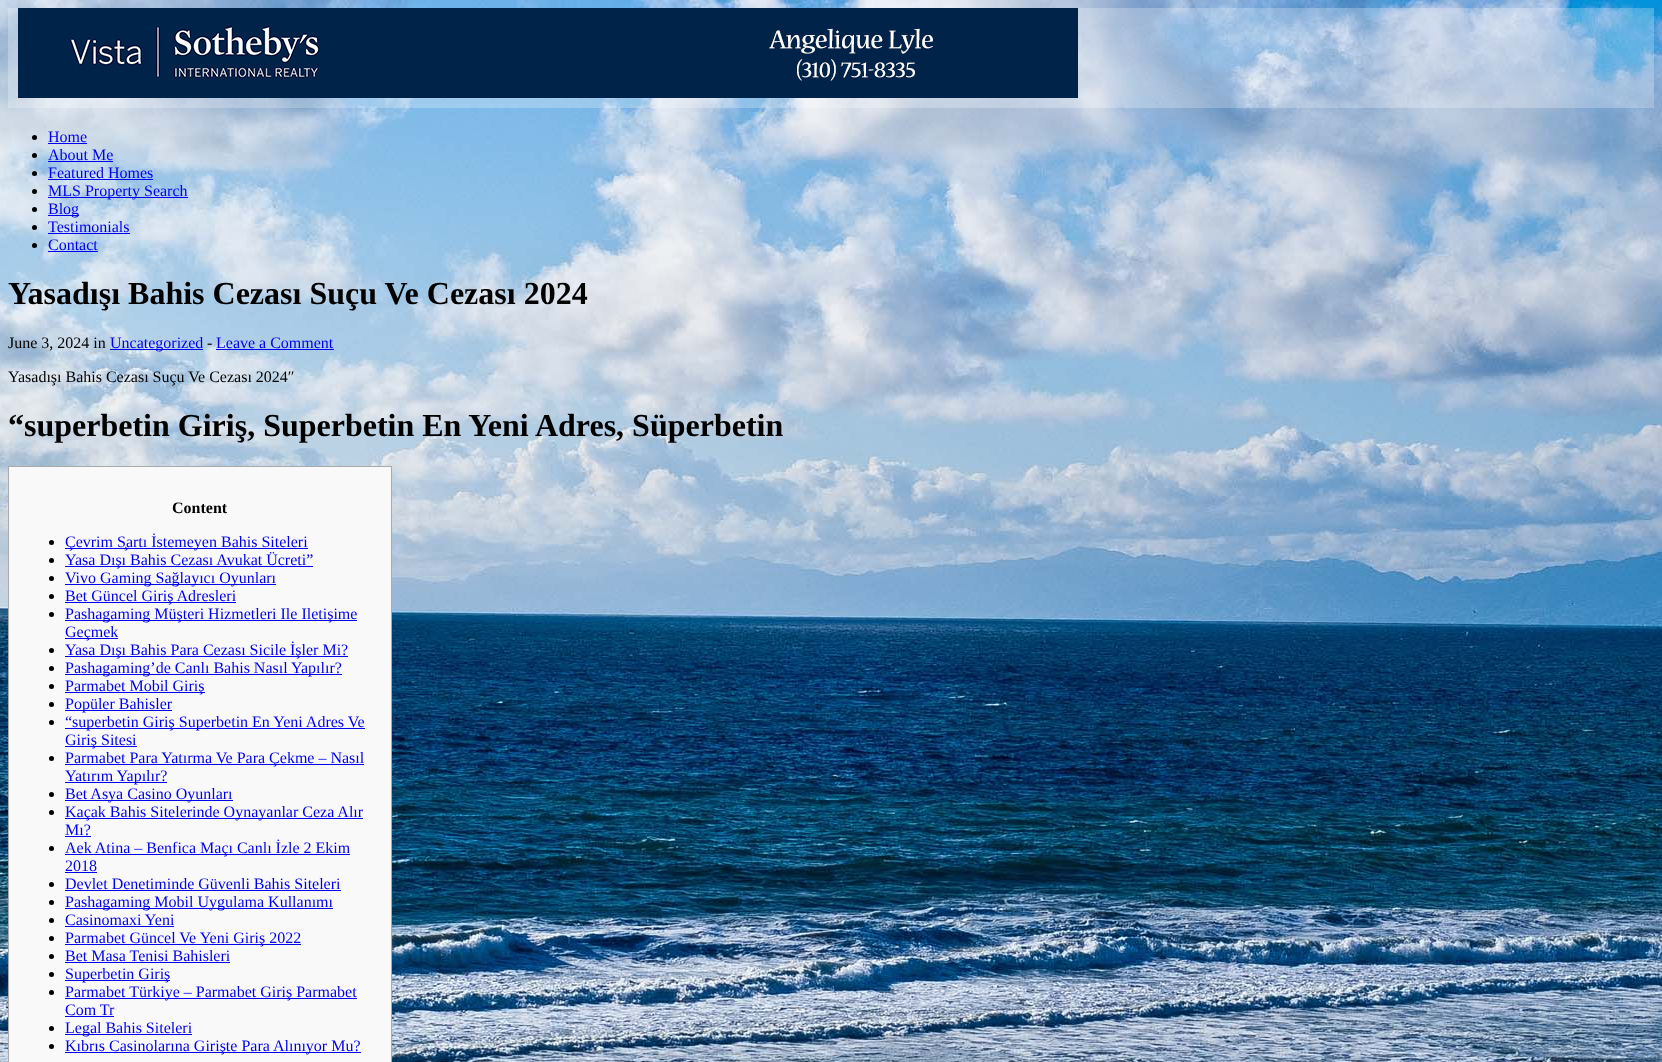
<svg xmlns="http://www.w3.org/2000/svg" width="1662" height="1062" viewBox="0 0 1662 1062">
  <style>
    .t1 { font: 16px Liberation Serif; fill: #00e; }
    .t2 { font: bold 32px Liberation Serif; fill: #000; }
    .t3 { font: 16px Liberation Serif; fill: #000; }
    .t4 { font: bold 16px Liberation Serif; fill: #000; }
  </style>
  <rect width="100%" height="100%" fill="#fff"/>
  <image x="0" y="0" width="1662" height="1062" href="images/1.png"/>
  <rect x="8" y="8" width="1646" height="100" fill="#ffffff40"/>
  <image x="18" y="8" width="1060" height="90" href="images/2.png"/>
  <circle cx="34.5" cy="137.5" r="2.5" fill="#000"/>
  <text x="48" y="142" class="t1">Home</text>
  <rect x="48" y="143" width="39" height="1" fill="#00e"/>
  <circle cx="34.5" cy="155.5" r="2.5" fill="#000"/>
  <text x="48" y="160" class="t1">About Me</text>
  <rect x="48" y="161" width="65" height="1" fill="#00e"/>
  <circle cx="34.5" cy="173.5" r="2.5" fill="#000"/>
  <text x="48" y="178" class="t1">Featured Homes</text>
  <rect x="48" y="179" width="105" height="1" fill="#00e"/>
  <circle cx="34.5" cy="191.5" r="2.5" fill="#000"/>
  <rect x="48" y="197" width="140" height="1" fill="#00e"/>
  <text x="48" y="196" class="t1">MLS Property Search</text>
  <circle cx="34.5" cy="209.5" r="2.5" fill="#000"/>
  <rect x="48" y="215" width="31" height="1" fill="#00e"/>
  <text x="48" y="214" class="t1">Blog</text>
  <circle cx="34.5" cy="227.5" r="2.5" fill="#000"/>
  <text x="48" y="232" class="t1">Testimonials</text>
  <rect x="48" y="233" width="82" height="1" fill="#00e"/>
  <circle cx="34.5" cy="245.5" r="2.5" fill="#000"/>
  <text x="48" y="250" class="t1">Contact</text>
  <rect x="48" y="251" width="50" height="1" fill="#00e"/>
  <text x="8" y="304" class="t2">Yasadışı Bahis Cezası Suçu Ve Cezası 2024</text>
  <text x="8" y="348" class="t3">June 3, 2024 in</text>
  <rect x="110" y="349" width="93" height="1" fill="#00e"/>
  <text x="110" y="348" class="t1">Uncategorized</text>
  <text x="207" y="348" class="t3">-</text>
  <text x="216" y="348" class="t1">Leave a Comment</text>
  <rect x="216" y="349" width="118" height="1" fill="#00e"/>
  <text x="8" y="382" class="t3">Yasadışı Bahis Cezası Suçu Ve Cezası 2024″</text>
  <text x="8" y="436" class="t2">“superbetin Giriş, Superbetin En Yeni Adres, Süperbetin</text>
  <rect x="8.5" y="466.5" width="383" height="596" fill="#f9f9f9" stroke="#aaa"/>
  <text x="172" y="513" class="t4">Content</text>
  <circle cx="51.5" cy="542.5" r="2.5" fill="#000"/>
  <rect x="65" y="548" width="243" height="1" fill="#00e"/>
  <text x="65" y="547" class="t1">Çevrim Şartı İstemeyen Bahis Siteleri</text>
  <circle cx="51.5" cy="560.5" r="2.5" fill="#000"/>
  <rect x="65" y="566" width="248" height="1" fill="#00e"/>
  <text x="65" y="565" class="t1">Yasa Dışı Bahis Cezası Avukat Ücreti”</text>
  <circle cx="51.5" cy="578.5" r="2.5" fill="#000"/>
  <rect x="65" y="584" width="211" height="1" fill="#00e"/>
  <text x="65" y="583" class="t1">Vivo Gaming Sağlayıcı Oyunları</text>
  <circle cx="51.5" cy="596.5" r="2.5" fill="#000"/>
  <rect x="65" y="602" width="171" height="1" fill="#00e"/>
  <text x="65" y="601" class="t1">Bet Güncel Giriş Adresleri</text>
  <circle cx="51.5" cy="614.5" r="2.5" fill="#000"/>
  <rect x="65" y="620" width="292" height="1" fill="#00e"/>
  <text x="65" y="619" class="t1">Pashagaming Müşteri Hizmetleri Ile Iletişime</text>
  <rect x="65" y="638" width="53" height="1" fill="#00e"/>
  <text x="65" y="637" class="t1">Geçmek</text>
  <circle cx="51.5" cy="650.5" r="2.5" fill="#000"/>
  <rect x="65" y="656" width="283" height="1" fill="#00e"/>
  <text x="65" y="655" class="t1">Yasa Dışı Bahis Para Cezası Sicile İşler Mi?</text>
  <circle cx="51.5" cy="668.5" r="2.5" fill="#000"/>
  <rect x="65" y="674" width="277" height="1" fill="#00e"/>
  <text x="65" y="673" class="t1">Pashagaming’de Canlı Bahis Nasıl Yapılır?</text>
  <circle cx="51.5" cy="686.5" r="2.5" fill="#000"/>
  <rect x="65" y="692" width="140" height="1" fill="#00e"/>
  <text x="65" y="691" class="t1">Parmabet Mobil Giriş</text>
  <circle cx="51.5" cy="704.5" r="2.5" fill="#000"/>
  <rect x="65" y="710" width="107" height="1" fill="#00e"/>
  <text x="65" y="709" class="t1">Popüler Bahisler</text>
  <circle cx="51.5" cy="722.5" r="2.5" fill="#000"/>
  <rect x="65" y="728" width="300" height="1" fill="#00e"/>
  <text x="65" y="727" class="t1">“superbetin Giriş Superbetin En Yeni Adres Ve</text>
  <rect x="65" y="746" width="72" height="1" fill="#00e"/>
  <text x="65" y="745" class="t1">Giriş Sitesi</text>
  <circle cx="51.5" cy="758.5" r="2.5" fill="#000"/>
  <rect x="65" y="764" width="299" height="1" fill="#00e"/>
  <text x="65" y="763" class="t1">Parmabet Para Yatırma Ve Para Çekme – Nasıl</text>
  <rect x="65" y="782" width="102" height="1" fill="#00e"/>
  <text x="65" y="781" class="t1">Yatırım Yapılır?</text>
  <circle cx="51.5" cy="794.5" r="2.5" fill="#000"/>
  <rect x="65" y="800" width="168" height="1" fill="#00e"/>
  <text x="65" y="799" class="t1">Bet Asya Casino Oyunları</text>
  <circle cx="51.5" cy="812.5" r="2.5" fill="#000"/>
  <rect x="65" y="818" width="298" height="1" fill="#00e"/>
  <text x="65" y="817" class="t1">Kaçak Bahis Sitelerinde Oynayanlar Ceza Alır</text>
  <text x="65" y="835" class="t1">Mı?</text>
  <rect x="65" y="836" width="26" height="1" fill="#00e"/>
  <circle cx="51.5" cy="848.5" r="2.5" fill="#000"/>
  <rect x="65" y="854" width="285" height="1" fill="#00e"/>
  <text x="65" y="853" class="t1">Aek Atina – Benfica Maçı Canlı İzle 2 Ekim</text>
  <text x="65" y="871" class="t1">2018</text>
  <rect x="65" y="872" width="32" height="1" fill="#00e"/>
  <circle cx="51.5" cy="884.5" r="2.5" fill="#000"/>
  <text x="65" y="889" class="t1">Devlet Denetiminde Güvenli Bahis Siteleri</text>
  <rect x="65" y="890" width="276" height="1" fill="#00e"/>
  <circle cx="51.5" cy="902.5" r="2.5" fill="#000"/>
  <rect x="65" y="908" width="268" height="1" fill="#00e"/>
  <text x="65" y="907" class="t1">Pashagaming Mobil Uygulama Kullanımı</text>
  <circle cx="51.5" cy="920.5" r="2.5" fill="#000"/>
  <text x="65" y="925" class="t1">Casinomaxi Yeni</text>
  <rect x="65" y="926" width="109" height="1" fill="#00e"/>
  <circle cx="51.5" cy="938.5" r="2.5" fill="#000"/>
  <rect x="65" y="944" width="236" height="1" fill="#00e"/>
  <text x="65" y="943" class="t1">Parmabet Güncel Ve Yeni Giriş 2022</text>
  <circle cx="51.5" cy="956.5" r="2.5" fill="#000"/>
  <text x="65" y="961" class="t1">Bet Masa Tenisi Bahisleri</text>
  <rect x="65" y="962" width="165" height="1" fill="#00e"/>
  <circle cx="51.5" cy="974.5" r="2.5" fill="#000"/>
  <rect x="65" y="980" width="105" height="1" fill="#00e"/>
  <text x="65" y="979" class="t1">Superbetin Giriş</text>
  <circle cx="51.5" cy="992.5" r="2.5" fill="#000"/>
  <rect x="65" y="998" width="292" height="1" fill="#00e"/>
  <text x="65" y="997" class="t1">Parmabet Türkiye – Parmabet Giriş Parmabet</text>
  <text x="65" y="1015" class="t1">Com Tr</text>
  <rect x="65" y="1016" width="49" height="1" fill="#00e"/>
  <circle cx="51.5" cy="1028.5" r="2.5" fill="#000"/>
  <rect x="65" y="1034" width="127" height="1" fill="#00e"/>
  <text x="65" y="1033" class="t1">Legal Bahis Siteleri</text>
  <circle cx="51.5" cy="1046.5" r="2.5" fill="#000"/>
  <rect x="65" y="1052" width="296" height="1" fill="#00e"/>
  <text x="65" y="1051" class="t1">Kıbrıs Casinolarına Girişte Para Alınıyor Mu?</text>
</svg>
